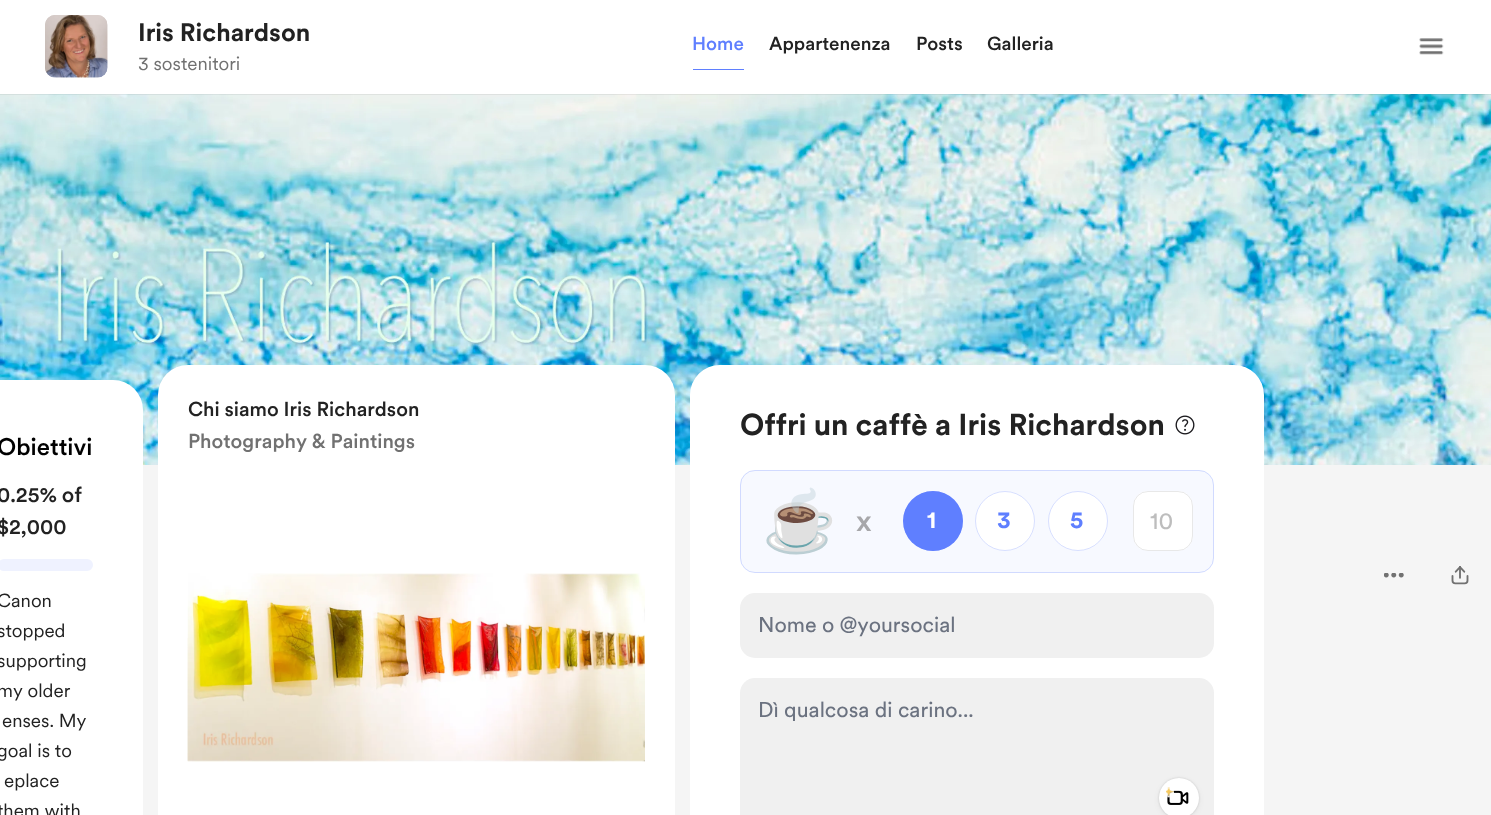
<svg xmlns="http://www.w3.org/2000/svg" width="1491" height="815" viewBox="0 0 1491 815">
  <style>*{font-kerning:none!important;font-variant-ligatures:none!important}</style>
  <style>
    .t1 { font: bold 25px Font; fill: #222; }
    .t2 { font: 18.75px 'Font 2'; fill: #717171; }
    .t3 { font: 500 18.75px Font; fill: #5f7fff; }
    .t4 { font: 500 18.75px Font; fill: #222; }
    .t5 { font: 500 23.75px Font; fill: #000; }
    .t6 { font: 500 21.25px Font; fill: #222; }
    .t7 { font: 18.75px 'Font 2'; fill: #222; }
    .t8 { font: 500 20px Font; fill: #222; }
    .t9 { font: 500 20px Font; fill: #717171; }
    .t10 { font: bold 30px Font; fill: #222; }
    .t11 { font: 60px Noto Color Emoji; fill: #000; }
    .t12 { font: 500 30px Font; fill: #a7a7aa; }
    .t13 { font: bold 23.75px Font; fill: #fff; }
    .t14 { font: bold 23.75px Font; fill: #5f7fff; }
    .t15 { font: 23.75px Font; fill: #bdbdbd; }
    .t16 { font: 21.25px Font; fill: #6b7280; }
  </style>
  <rect width="100%" height="100%" fill="#f5f5f5"/>
  <image x="0" y="94" width="1491" height="371" href="images/4.png"/>
  <rect x="0" y="1" width="1491" height="94" fill="#0000000f" filter="blur(0.5px)"/>
  <rect x="0" y="0" width="1491" height="94" fill="#fff"/>
  <image x="45" y="15" width="63" height="63" href="images/1.png"/>
  <image x="45" y="15" width="63" height="63" href="images/2.png"/>
  <text x="138" y="41" class="t1">Iris Richardson</text>
  <text x="138" y="70" class="t2">3 sostenitori</text>
  <text x="692" y="50" class="t3">Home</text>
  <rect x="693" y="69" width="51" height="1" fill="#5f7fff"/>
  <text x="769" y="50" class="t4">Appartenenza</text>
  <text x="916" y="50" class="t4">Posts</text>
  <text x="987" y="50" class="t4">Galleria</text>
  <image x="1419" y="38" width="25" height="17" href="images/3.png"/>
  <rect x="-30" y="380" width="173" height="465" rx="30" fill="#fff"/>
  <text x="-3" y="455" class="t5">Obiettivi</text>
  <text x="-3" y="502" class="t6">0.25% of</text>
  <text x="-3" y="534" class="t6">$2,000</text>
  <rect x="-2" y="559" width="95" height="12" rx="6" fill="#eff2ff"/>
  <text x="-3" y="607" class="t7">Canon</text>
  <text x="-3" y="637" class="t7">stopped</text>
  <text x="-3" y="667" class="t7">supporting</text>
  <text x="-3" y="697" class="t7">my older</text>
  <text x="2" y="727" class="t7">enses. My</text>
  <text x="-3" y="757" class="t7">goal is to</text>
  <text x="4" y="787" class="t7">eplace</text>
  <text x="-3" y="817" class="t7">them with</text>
  <rect x="158" y="365" width="517" height="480" rx="30" fill="#fff"/>
  <text x="188" y="416" class="t8">Chi siamo Iris Richardson</text>
  <text x="188" y="448" class="t9">Photography &amp; Paintings</text>
  <image x="187" y="573" width="458" height="189" href="images/5.png"/>
  <image x="187" y="638" width="1" height="123" href="images/6.png"/>
  <rect x="690" y="365" width="574" height="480" rx="30" fill="#fff"/>
  <text x="740" y="435" class="t10">Offri un caffè a Iris Richardson</text>
  <image x="1175" y="415" width="20" height="20" href="images/7.png"/>
  <rect x="740" y="470" width="474" height="103" rx="15" fill="#f7f9ff"/>
  <rect x="740.5" y="470.5" width="473" height="102" rx="14.5" fill="none" stroke="#5f7fff40"/>
  <text x="762" y="542" class="t11">☕</text>
  <text x="856" y="531" class="t12">x</text>
  <circle cx="933" cy="521" r="30" fill="#5f7fff"/>
  <circle cx="933" cy="521" r="29.5" fill="none" stroke="#5f7fff40"/>
  <text x="927" y="528" class="t13">1</text>
  <circle cx="1005" cy="521" r="30" fill="#fff"/>
  <circle cx="1005" cy="521" r="29.5" fill="none" stroke="#5f7fff40"/>
  <text x="997" y="528" class="t14">3</text>
  <circle cx="1078" cy="521" r="30" fill="#fff"/>
  <circle cx="1078" cy="521" r="29.5" fill="none" stroke="#5f7fff40"/>
  <text x="1070" y="528" class="t14">5</text>
  <rect x="1133" y="491" width="60" height="60" rx="15" fill="#fff"/>
  <rect x="1133.5" y="491.5" width="59" height="59" rx="14.5" fill="none" stroke="#2222221a"/>
  <text x="1150" y="529" class="t15">10</text>
  <rect x="740" y="593" width="474" height="65" rx="15" fill="#f0f0f0"/>
  <text x="758" y="632" class="t16">Nome o @yoursocial</text>
  <rect x="740" y="678" width="474" height="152" rx="15" fill="#f0f0f0"/>
  <text x="758" y="717" class="t16">Dì qualcosa di carino...</text>
  <rect x="1159" y="780" width="40" height="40" rx="20" fill="#0000000d" filter="blur(3px)"/>
  <rect x="1159" y="778" width="40" height="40" rx="20" fill="#00000026" filter="blur(1px)"/>
  <circle cx="1179" cy="798" r="20" fill="#fff"/>
  <image x="1167" y="790" width="22" height="15" href="images/9.png"/>
  <image x="1166" y="787" width="8" height="11" href="images/8.png"/>
  <image x="1384" y="573" width="20" height="5" href="images/10.png"/>
  <image x="1451" y="566" width="18" height="19" href="images/11.png"/>
</svg>
